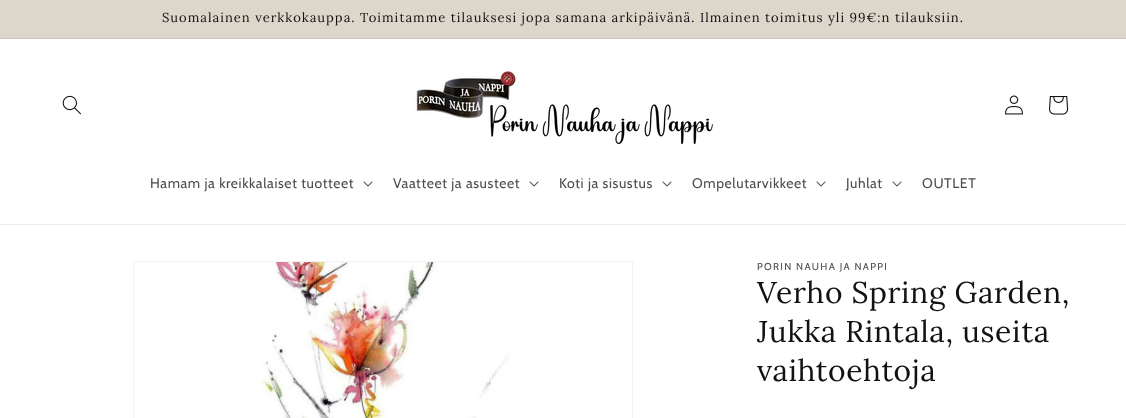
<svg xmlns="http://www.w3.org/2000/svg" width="1126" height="418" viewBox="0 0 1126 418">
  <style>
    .t1 { font: 13px Lora; letter-spacing: 1px; fill: #121212; }
    .t2 { font: 14px Cabin; letter-spacing: 0.6px; fill: #4d4d4d; }
    .t3 { font: 10px Cabin; letter-spacing: 1.3px; fill: #4d4d4d; }
    .t4 { font: 30px Lora; letter-spacing: 0.6px; fill: #121212; }
  </style>
  <rect width="100%" height="100%" fill="#fff"/>
  <rect x="0" y="0" width="1126" height="38" fill="#ddd6cb"/>
  <rect x="0" y="38" width="1126" height="1" fill="#cdc6bc"/>
  <text x="162" y="22" class="t1">Suomalainen verkkokauppa. Toimitamme tilauksesi jopa samana arkipäivänä. Ilmainen toimitus yli 99€:n tilauksiin.</text>
  <rect x="0" y="224" width="1126" height="1" fill="#ececec"/>
  <image x="62" y="95" width="19" height="20" href="images/1.png"/>
  <image x="413" y="67" width="300" height="77" href="images/2.png"/>
  <image x="1005" y="95" width="18" height="20" href="images/3.png"/>
  <image x="1049" y="96" width="20" height="19" href="images/4.png"/>
  <text x="150" y="188" class="t2">Hamam ja kreikkalaiset tuotteet</text>
  <image x="363" y="181" width="10" height="6" href="images/5.png"/>
  <text x="393" y="188" class="t2">Vaatteet ja asusteet</text>
  <image x="529" y="181" width="10" height="6" href="images/5.png"/>
  <text x="559" y="188" class="t2">Koti ja sisustus</text>
  <image x="662" y="181" width="10" height="6" href="images/5.png"/>
  <text x="692" y="188" class="t2">Ompelutarvikkeet</text>
  <image x="816" y="181" width="10" height="6" href="images/5.png"/>
  <text x="846" y="188" class="t2">Juhlat</text>
  <image x="892" y="181" width="10" height="6" href="images/5.png"/>
  <text x="922" y="188" class="t2">OUTLET</text>
  <rect x="133.5" y="261.5" width="499" height="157" fill="none" stroke="#f3f3f3"/>
  <image x="260" y="262" width="250" height="156" href="images/6.png"/>
  <text x="757" y="270" class="t3">PORIN NAUHA JA NAPPI</text>
  <text x="757" y="303" class="t4">Verho Spring Garden,</text>
  <text x="757" y="342" class="t4">Jukka Rintala, useita</text>
  <text x="757" y="381" class="t4">vaihtoehtoja</text>
</svg>
